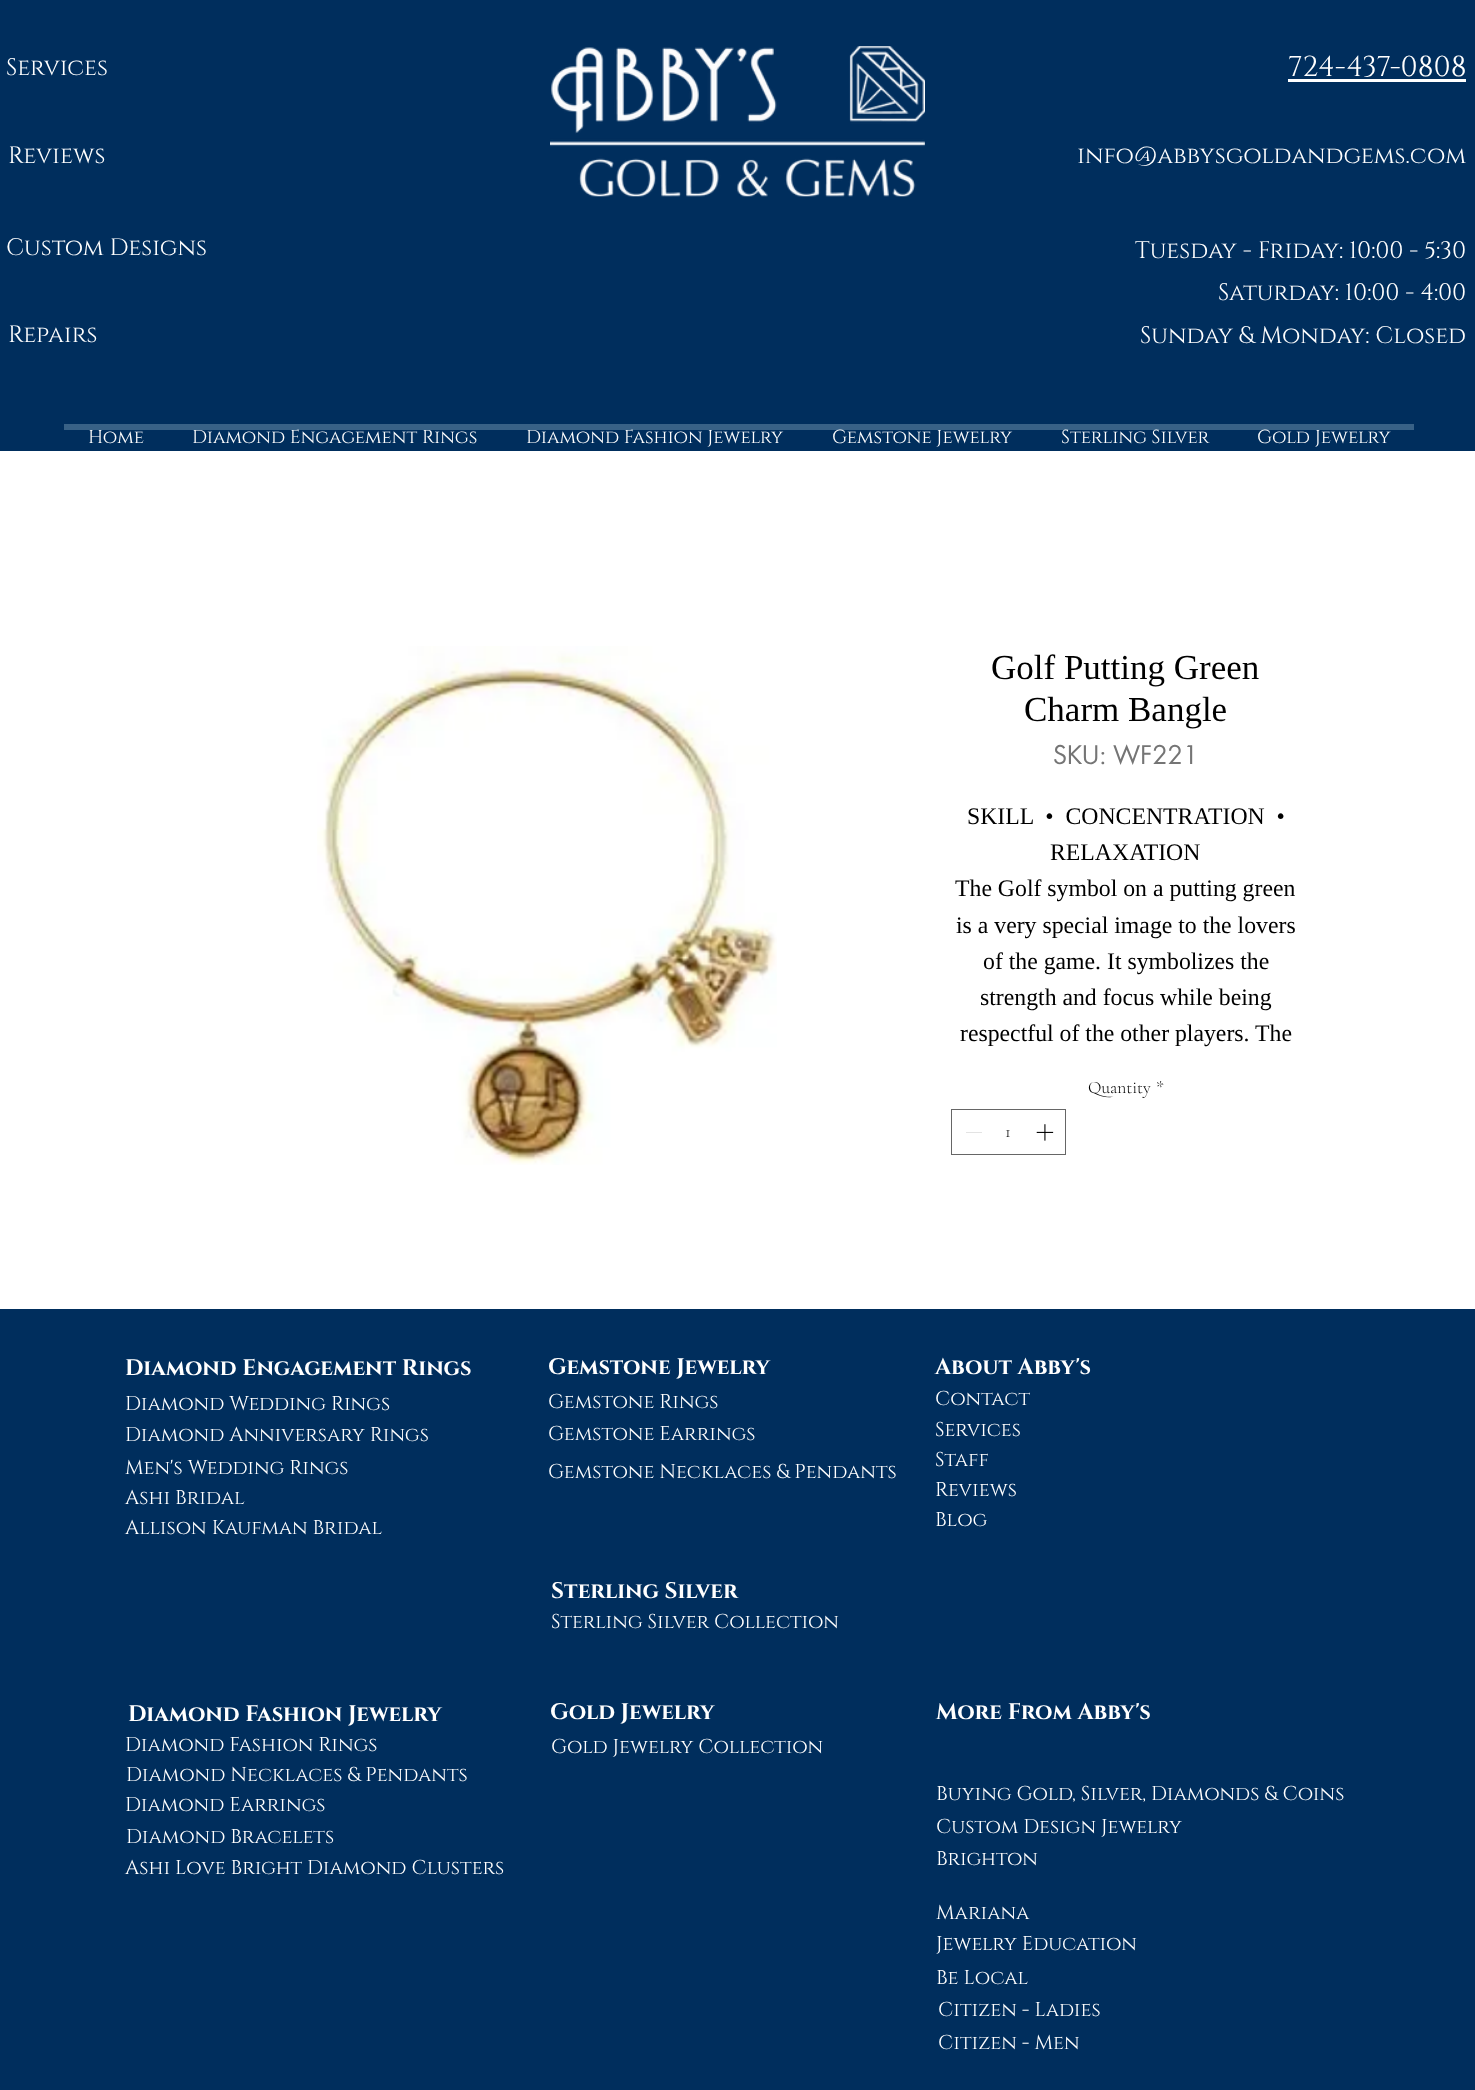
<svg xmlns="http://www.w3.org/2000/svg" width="1475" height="2090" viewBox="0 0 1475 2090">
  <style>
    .t1 { font: 23.75px Cinzel; fill: #fff; }
    .t2 { font: 28.75px Cinzel; fill: #fff; }
    .t3 { font: 18.75px Cinzel; fill: #fff; }
    .t4 { font: 35px Liberation Serif; fill: #000; }
    .t5 { font: 25px futura; fill: #757575; }
    .t6 { font: 23.75px Liberation Serif; fill: #000; }
    .t7 { font: 300 17.5px Cormorant Garamond; fill: #000; }
    .t8 { font: bold 22.5px Cinzel; fill: #fff; }
    .t9 { font: 20px Cinzel; fill: #fff; }
  </style>
  <rect width="100%" height="100%" fill="#fff"/>
  <rect x="0" y="0" width="1475" height="451" fill="#002e5d"/>
  <text x="6" y="75" class="t1">Services</text>
  <image x="550" y="46" width="375" height="151" href="images/1.png"/>
  <text x="1288" y="76" class="t2">724-437-0808</text>
  <rect x="1288" y="79" width="178" height="3" fill="#fff"/>
  <text x="8" y="163" class="t1">Reviews</text>
  <text x="1077" y="163" class="t1">info@abbysgoldandgems.com</text>
  <text x="6" y="255" class="t1">Custom Designs</text>
  <text x="1135" y="258" class="t1">Tuesday - Friday: 10:00 - 5:30</text>
  <text x="1218" y="300" class="t1">Saturday: 10:00 - 4:00</text>
  <text x="1140" y="343" class="t1">Sunday &amp; Monday: Closed</text>
  <text x="8" y="342" class="t1">Repairs</text>
  <rect x="64" y="424" width="1350" height="6" fill="#386186"/>
  <text x="88" y="443" class="t3">Home</text>
  <text x="192" y="443" class="t3">Diamond Engagement Rings</text>
  <text x="526" y="443" class="t3">Diamond Fashion Jewelry</text>
  <text x="832" y="443" class="t3">Gemstone Jewelry</text>
  <text x="1061" y="443" class="t3">Sterling Silver</text>
  <text x="1257" y="443" class="t3">Gold Jewelry</text>
  <image x="317" y="646" width="460" height="519" href="images/2.png"/>
  <text x="991" y="679" class="t4">Golf Putting Green</text>
  <text x="1024" y="721" class="t4">Charm Bangle</text>
  <text x="1053" y="764" class="t5">SKU: WF221</text>
  <text x="967" y="824" class="t6" xml:space="preserve">SKILL  •  CONCENTRATION  •</text>
  <text x="1050" y="860" class="t6">RELAXATION</text>
  <text x="955" y="896" class="t6">The Golf symbol on a putting green</text>
  <text x="956" y="933" class="t6">is a very special image to the lovers</text>
  <text x="983" y="969" class="t6">of the game. It symbolizes the</text>
  <text x="980" y="1005" class="t6">strength and focus while being</text>
  <text x="960" y="1041" class="t6">respectful of the other players. The</text>
  <text x="1088" y="1093" class="t7">Quantity</text>
  <text x="1156" y="1093" class="t7">*</text>
  <rect x="951.5" y="1109.5" width="114" height="45" fill="none" stroke="#666"/>
  <rect x="966" y="1132" width="16" height="1" fill="#e3e3e3"/>
  <text x="1005" y="1137" class="t7">1</text>
  <image x="1036" y="1124" width="18" height="17" href="images/3.png"/>
  <rect x="0" y="1309" width="1475" height="781" fill="#002e5d"/>
  <text x="125" y="1375" class="t8">Diamond Engagement Rings</text>
  <text x="125" y="1410" class="t9">Diamond Wedding Rings</text>
  <text x="125" y="1441" class="t9">Diamond Anniversary Rings</text>
  <text x="125" y="1474" class="t9">Men's Wedding Rings</text>
  <text x="125" y="1504" class="t9">Ashi Bridal</text>
  <text x="125" y="1534" class="t9">Allison Kaufman Bridal</text>
  <text x="548" y="1374" class="t8">Gemstone Jewelry</text>
  <text x="548" y="1408" class="t9">Gemstone Rings</text>
  <text x="548" y="1440" class="t9">Gemstone Earrings</text>
  <text x="548" y="1478" class="t9">Gemstone Necklaces &amp; Pendants</text>
  <text x="935" y="1374" class="t8">About Abby's</text>
  <text x="935" y="1405" class="t9">Contact</text>
  <text x="935" y="1436" class="t9">Services</text>
  <text x="935" y="1466" class="t9">Staff</text>
  <text x="935" y="1496" class="t9">Reviews</text>
  <text x="935" y="1526" class="t9">Blog</text>
  <text x="551" y="1598" class="t8">Sterling Silver</text>
  <text x="551" y="1628" class="t9">Sterling Silver Collection</text>
  <text x="128" y="1721" class="t8">Diamond Fashion Jewelry</text>
  <text x="125" y="1751" class="t9">Diamond Fashion Rings</text>
  <text x="126" y="1781" class="t9">Diamond Necklaces &amp; Pendants</text>
  <text x="125" y="1811" class="t9">Diamond Earrings</text>
  <text x="126" y="1843" class="t9">Diamond Bracelets</text>
  <text x="125" y="1874" class="t9">Ashi Love Bright Diamond Clusters</text>
  <text x="550" y="1719" class="t8">Gold Jewelry</text>
  <text x="551" y="1753" class="t9">Gold Jewelry Collection</text>
  <text x="936" y="1719" class="t8">More From Abby's</text>
  <text x="936" y="1800" class="t9">Buying Gold, Silver, Diamonds &amp; Coins</text>
  <text x="936" y="1833" class="t9">Custom Design Jewelry</text>
  <text x="936" y="1865" class="t9">Brighton</text>
  <text x="936" y="1919" class="t9">Mariana</text>
  <text x="936" y="1950" class="t9">Jewelry Education</text>
  <text x="936" y="1984" class="t9">Be Local</text>
  <text x="938" y="2016" class="t9">Citizen - Ladies</text>
  <text x="938" y="2049" class="t9">Citizen - Men</text>
</svg>
